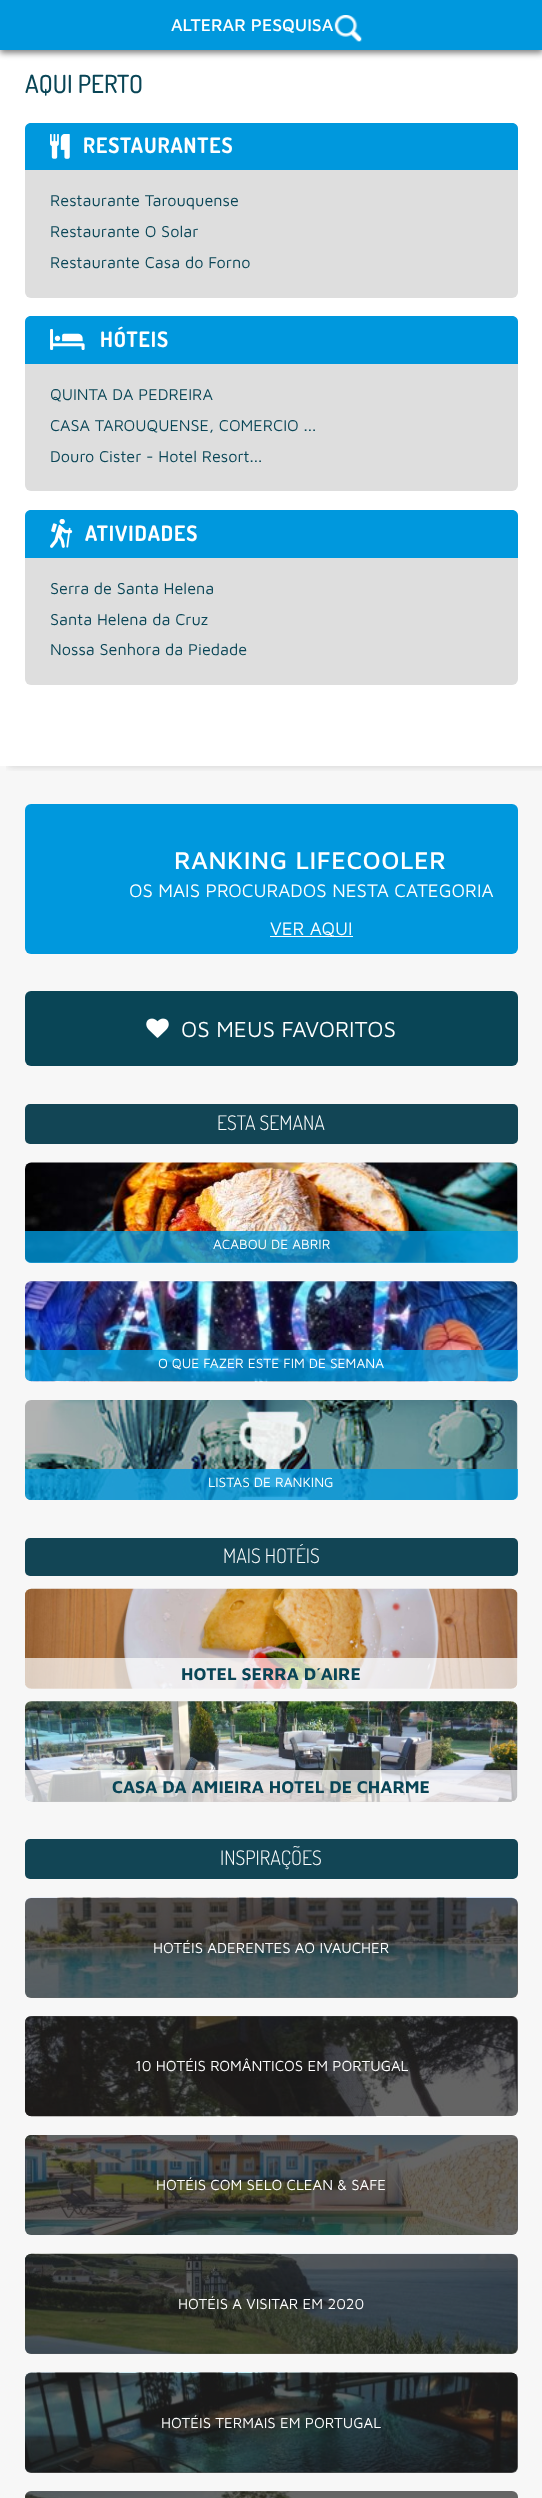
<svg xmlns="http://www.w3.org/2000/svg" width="542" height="2498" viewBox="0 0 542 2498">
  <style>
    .t1 { font: 500 17.5px Maven Pro; fill: #fff; }
    .t2 { font: 500 25px Dosis; fill: #094556; }
    .t3 { font: bold 21.25px Dosis; letter-spacing: 0.9px; fill: #fff; }
    .t4 { font: 16.25px Maven Pro; fill: #094556; }
    .t5 { font: 500 25px Maven Pro; letter-spacing: 0.6px; fill: #fff; }
    .t6 { font: 18.75px Maven Pro; fill: #fff; }
    .t7 { font: 22.5px Maven Pro; fill: #fff; }
    .t8 { font: 300 20px Dosis; fill: #fff; }
    .t9 { font: 13.75px Maven Pro; fill: #fff; }
    .t10 { font: bold 17.5px Maven Pro; fill: #094556; }
    .t11 { font: 15px Maven Pro; fill: #fff; }
  </style>
  <defs>
    <clipPath id="clip1"><rect x="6" y="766" width="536" height="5"/></clipPath>
  </defs>
  <rect width="100%" height="100%" fill="#fff"/>
  <rect x="0" y="3" width="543" height="50" fill="#00000080" filter="blur(3px)"/>
  <rect x="0" y="766" width="542" height="1732" fill="#f7f7f7"/>
  <g clip-path="url(#clip1)">
    <rect x="8" y="-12" width="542" height="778" fill="#29292933" filter="blur(4px)"/>
  </g>
  <rect x="0" y="0" width="542" height="50" fill="#0098dd"/>
  <text x="171" y="31" class="t1">ALTERAR PESQUISA</text>
  <image x="334" y="15" width="29" height="27" href="images/1.png"/>
  <text x="25" y="93" class="t2">AQUI PERTO</text>
  <rect x="25" y="123" width="493" height="175" rx="6" fill="#dedede"/>
  <path d="M31 123H512C515.5 123 518 125.5 518 129V170H25V129C25 125.5 27.5 123 31 123Z" fill="#0098dd"/>
  <image x="50" y="134" width="20" height="25" href="images/2.png"/>
  <text x="83" y="153" class="t3">RESTAURANTES</text>
  <text x="50" y="206" class="t4">Restaurante Tarouquense</text>
  <text x="50" y="237" class="t4">Restaurante O Solar</text>
  <text x="50" y="268" class="t4">Restaurante Casa do Forno</text>
  <rect x="25" y="316" width="493" height="175" rx="6" fill="#dedede"/>
  <path d="M31 316H512C515.5 316 518 318.5 518 322V364H25V322C25 318.5 27.5 316 31 316Z" fill="#0098dd"/>
  <image x="50" y="329" width="35" height="21" href="images/3.png"/>
  <text x="100" y="347" class="t3">HÓTEIS</text>
  <text x="50" y="400" class="t4">QUINTA DA PEDREIRA</text>
  <text x="50" y="431" class="t4">CASA TAROUQUENSE, COMERCIO ...</text>
  <text x="50" y="462" class="t4">Douro Cister - Hotel Resort...</text>
  <rect x="25" y="510" width="493" height="175" rx="6" fill="#dedede"/>
  <path d="M31 510H512C515.5 510 518 512.5 518 516V558H25V516C25 512.5 27.5 510 31 510Z" fill="#0098dd"/>
  <image x="50" y="519" width="23" height="29" href="images/4.png"/>
  <text x="85" y="541" class="t3">ATIVIDADES</text>
  <text x="50" y="594" class="t4">Serra de Santa Helena</text>
  <text x="50" y="625" class="t4">Santa Helena da Cruz</text>
  <text x="50" y="655" class="t4">Nossa Senhora da Piedade</text>
  <rect x="25" y="804" width="493" height="150" rx="6" fill="#0098dd"/>
  <text x="174" y="869" class="t5">RANKING LIFECOOLER</text>
  <text x="129" y="897" class="t6">OS MAIS PROCURADOS NESTA CATEGORIA</text>
  <rect x="270" y="936" width="83" height="1" fill="#fff"/>
  <text x="270" y="935" class="t6">VER AQUI</text>
  <rect x="25" y="991" width="493" height="75" rx="6" fill="#094556"/>
  <image x="146" y="1018" width="23" height="20" href="images/5.png"/>
  <text x="181" y="1037" class="t7">OS MEUS FAVORITOS</text>
  <rect x="25" y="1104" width="493" height="40" rx="5" fill="#124555"/>
  <text x="217" y="1130" class="t8">ESTA SEMANA</text>
  <image x="25" y="1162" width="493" height="101" href="images/6.png"/>
  <path d="M25 1231H518V1257C518 1260.5 515.5 1263 512 1263H31C27.5 1263 25 1260.5 25 1257Z" fill="#0098ddcc"/>
  <text x="213" y="1249" class="t9">ACABOU DE ABRIR</text>
  <image x="25" y="1281" width="493" height="101" href="images/7.png"/>
  <path d="M25 1350H518V1375C518 1378.5 515.5 1381 512 1381H31C27.5 1381 25 1378.5 25 1375Z" fill="#0098ddcc"/>
  <text x="158" y="1368" class="t9">O QUE FAZER ESTE FIM DE SEMANA</text>
  <image x="25" y="1400" width="493" height="100" href="images/8.png"/>
  <path d="M25 1469H518V1494C518 1497.5 515.5 1500 512 1500H31C27.5 1500 25 1497.5 25 1494Z" fill="#0098ddcc"/>
  <text x="208" y="1487" class="t9">LISTAS DE RANKING</text>
  <rect x="25" y="1538" width="493" height="38" rx="5" fill="#124555"/>
  <text x="223" y="1563" class="t8">MAIS HOTÉIS</text>
  <image x="25" y="1588" width="493" height="101" href="images/9.png"/>
  <path d="M25 1658H518V1683C518 1686.5 515.5 1689 512 1689H31C27.5 1689 25 1686.5 25 1683Z" fill="#ffffffb3"/>
  <text x="181" y="1680" class="t10">HOTEL SERRA D´AIRE</text>
  <image x="25" y="1701" width="493" height="101" href="images/10.png"/>
  <path d="M25 1770H518V1795C518 1798.5 515.5 1801 512 1801H31C27.5 1801 25 1798.5 25 1795Z" fill="#ffffffb3"/>
  <text x="112" y="1793" class="t10">CASA DA AMIEIRA HOTEL DE CHARME</text>
  <rect x="25" y="1839" width="493" height="40" rx="5" fill="#124555"/>
  <text x="220" y="1865" class="t8">INSPIRAÇÕES</text>
  <image x="25" y="1897" width="493" height="101" href="images/11.png"/>
  <rect x="25" y="1898" width="493" height="100" rx="6" fill="#232323b3"/>
  <text x="153" y="1953" class="t11">HOTÉIS ADERENTES AO IVAUCHER</text>
  <image x="25" y="2016" width="493" height="101" href="images/12.png"/>
  <rect x="25" y="2016" width="493" height="100" rx="6" fill="#232323b3"/>
  <text x="135" y="2071" class="t11">10 HOTÉIS ROMÂNTICOS EM PORTUGAL</text>
  <image x="25" y="2135" width="493" height="100" href="images/13.png"/>
  <rect x="25" y="2135" width="493" height="100" rx="6" fill="#232323b3"/>
  <text x="156" y="2190" class="t11">HOTÉIS COM SELO CLEAN &amp; SAFE</text>
  <image x="25" y="2253" width="493" height="101" href="images/14.png"/>
  <rect x="25" y="2254" width="493" height="100" rx="6" fill="#232323b3"/>
  <text x="178" y="2309" class="t11">HOTÉIS A VISITAR EM 2020</text>
  <image x="25" y="2372" width="493" height="101" href="images/15.png"/>
  <rect x="25" y="2373" width="493" height="100" rx="6" fill="#232323b3"/>
  <text x="161" y="2428" class="t11">HOTÉIS TERMAIS EM PORTUGAL</text>
  <image x="25" y="2491" width="492" height="7" href="images/16.png"/>
  <rect x="25" y="2491" width="493" height="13" rx="6" fill="#232323b3"/>
</svg>
